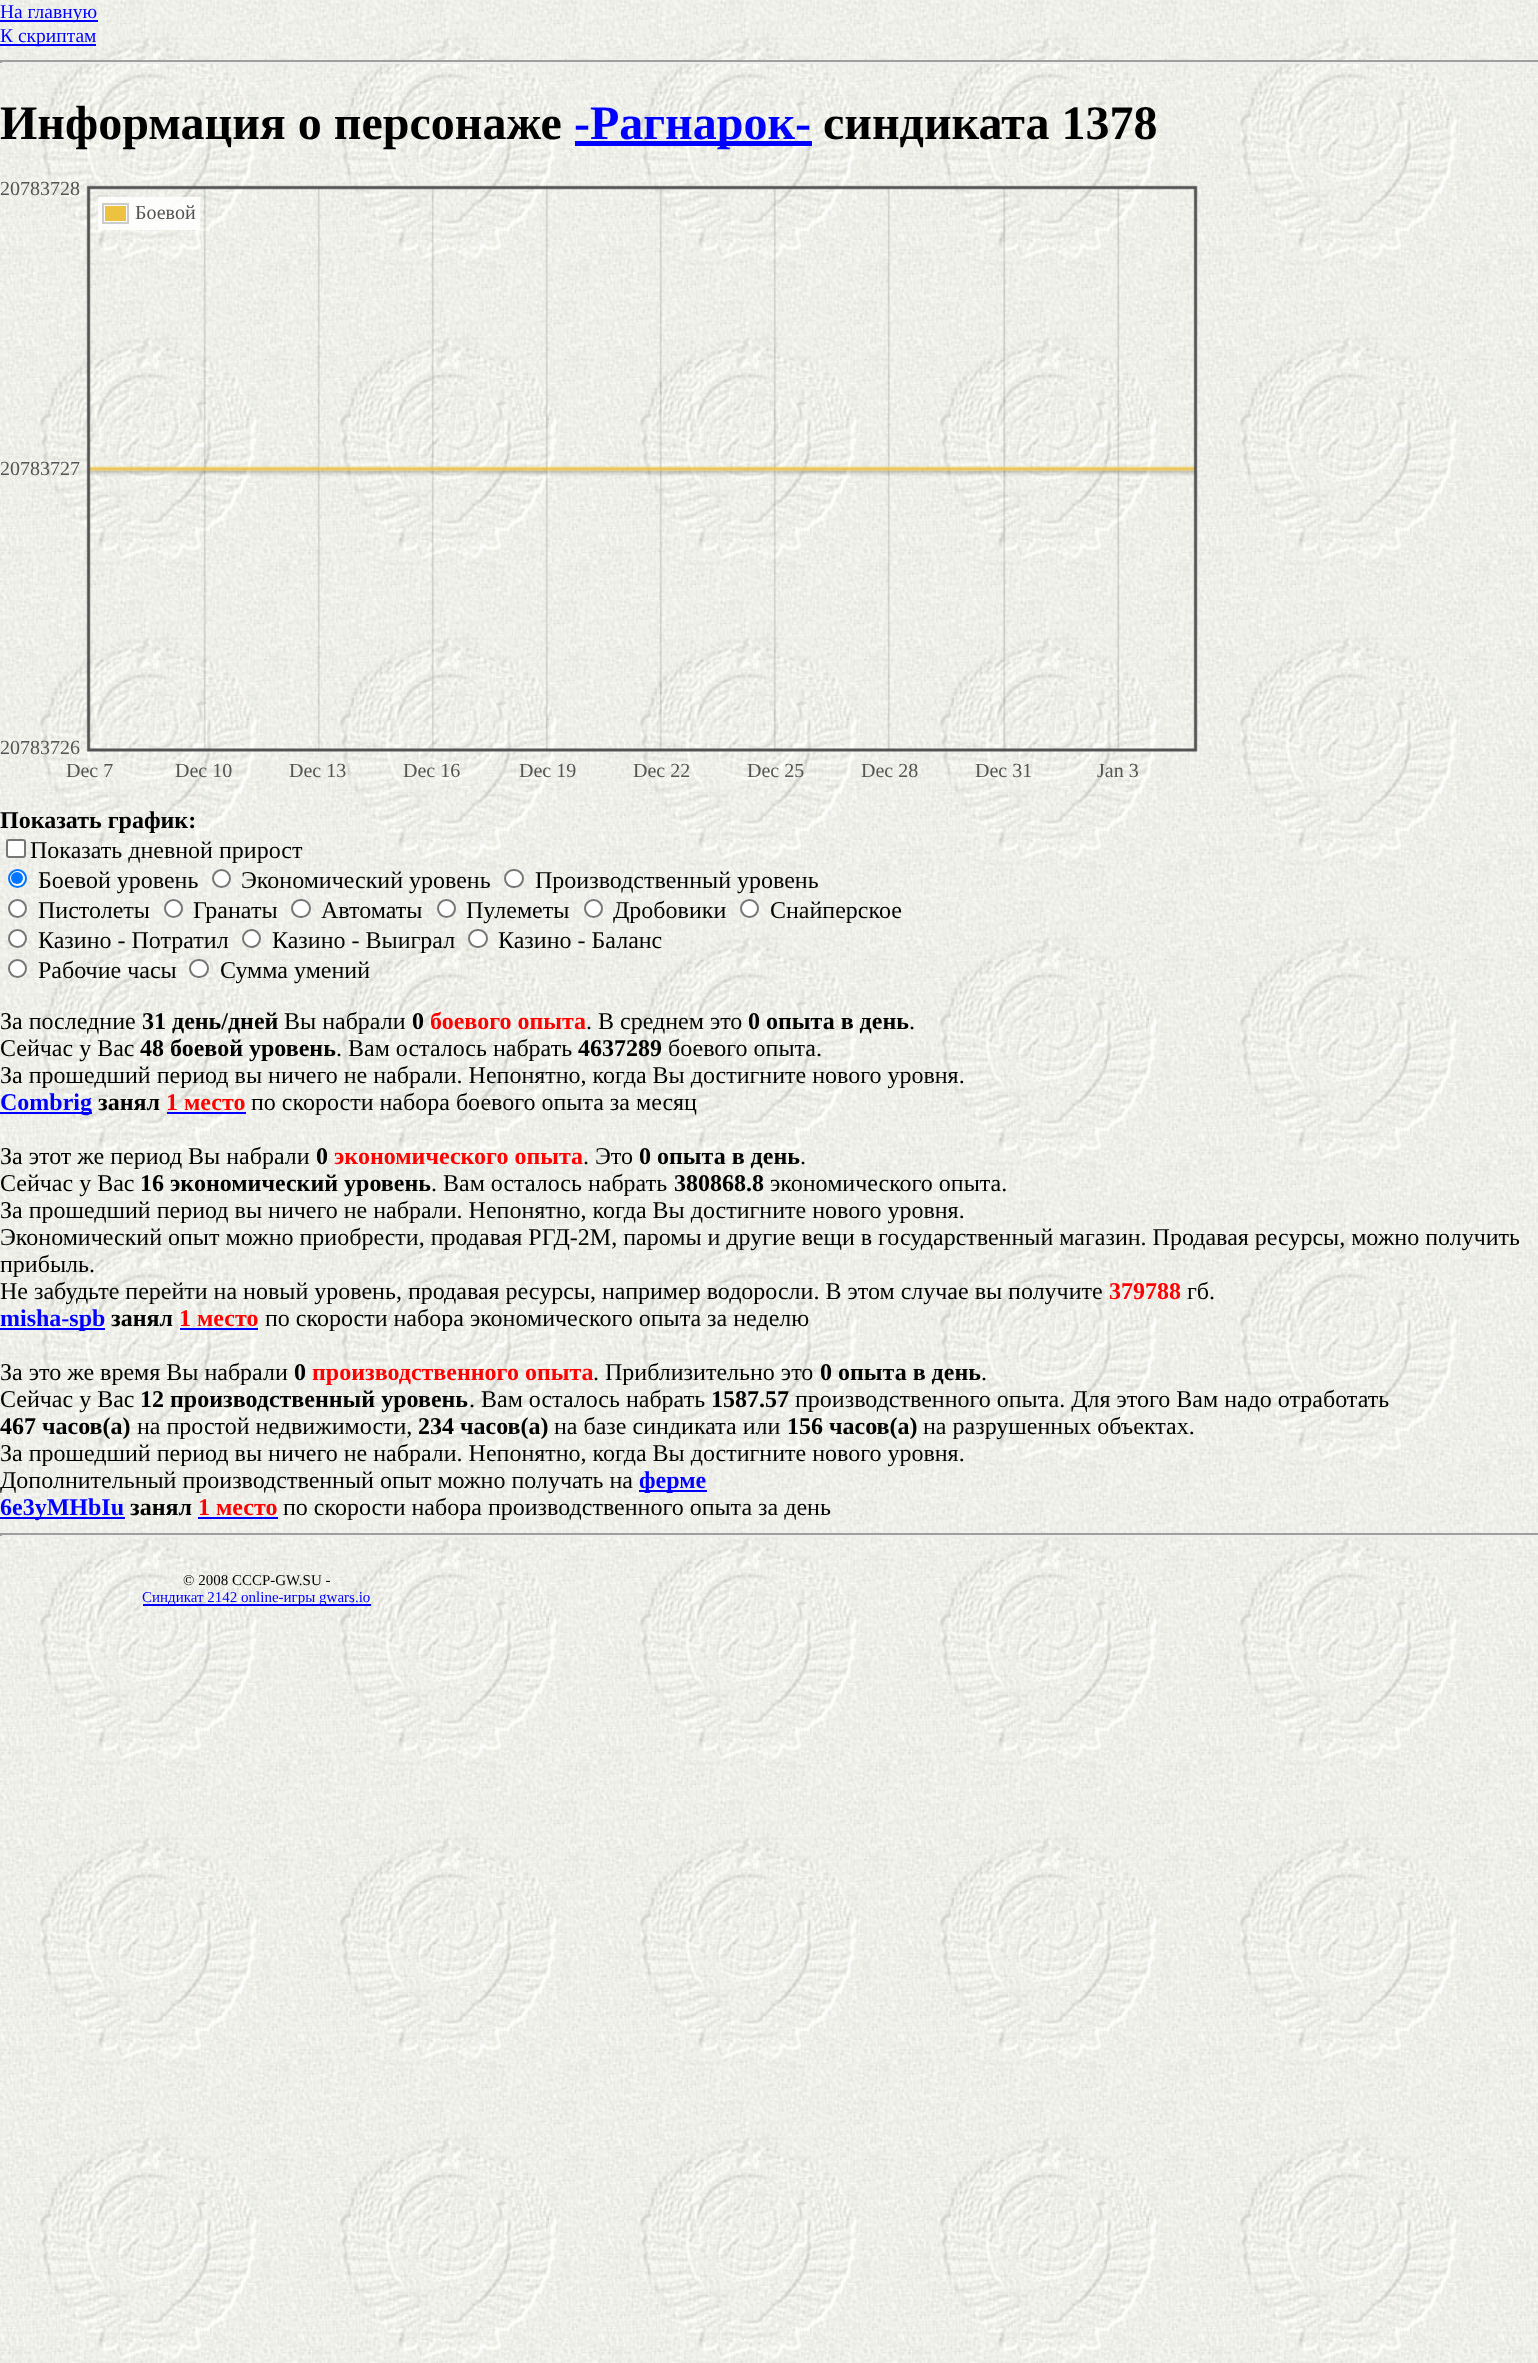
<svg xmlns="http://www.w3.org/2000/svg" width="1538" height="2363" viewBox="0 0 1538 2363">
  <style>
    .t1 { font: 19.5px Liberation Serif; fill: #00f; }
    .t2 { font: bold 48px Liberation Serif; fill: #000; }
    .t3 { font: bold 48px Liberation Serif; fill: #00f; }
    .t4 { font: 20px Liberation Serif; fill: #545454; }
    .t5 { font: bold 24px Liberation Serif; fill: #000; }
    .t6 { font: 24px Liberation Serif; fill: #000; }
    .t7 { font: bold 24px Liberation Serif; fill: #f00; }
    .t8 { font: bold 24px Liberation Serif; fill: #00f; }
    .t9 { font: 15px Liberation Serif; fill: #000; }
    .t10 { font: 15px Liberation Serif; fill: #00f; }
  </style>
  <rect width="100%" height="100%" fill="#fff"/>
  <image x="0" y="0" width="1538" height="2363" href="images/1.png"/>
  <rect x="0" y="20" width="98" height="2" fill="#00f"/>
  <text x="0" y="18" class="t1">На главную</text>
  <rect x="0" y="44" width="96" height="2" fill="#00f"/>
  <text x="0" y="42" class="t1">К скриптам</text>
  <rect x="0" y="60" width="1538" height="2" fill="#9f9f9f"/>
  <rect x="0" y="62" width="1538" height="2" fill="#eee"/>
  <rect x="0" y="60" width="2" height="3" fill="#9f9f9f"/>
  <text x="0" y="139" class="t2">Информация о персонаже</text>
  <rect x="575" y="141" width="237" height="5" fill="#00f"/>
  <text x="574" y="139" class="t3">-Рагнарок-</text>
  <text x="823" y="139" class="t2">синдиката 1378</text>
  <text x="0" y="195" class="t4">20783728</text>
  <text x="0" y="475" class="t4">20783727</text>
  <text x="0" y="754" class="t4">20783726</text>
  <text x="66" y="777" class="t4">Dec 7</text>
  <text x="175" y="777" class="t4">Dec 10</text>
  <text x="289" y="777" class="t4">Dec 13</text>
  <text x="403" y="777" class="t4">Dec 16</text>
  <text x="519" y="777" class="t4">Dec 19</text>
  <text x="633" y="777" class="t4">Dec 22</text>
  <text x="747" y="777" class="t4">Dec 25</text>
  <text x="861" y="777" class="t4">Dec 28</text>
  <text x="975" y="777" class="t4">Dec 31</text>
  <text x="1097" y="777" class="t4">Jan 3</text>
  <image x="86" y="185" width="1112" height="567" href="images/2.png"/>
  <rect x="98" y="197" width="102" height="33" fill="#ffffffd9"/>
  <rect x="103" y="204" width="25" height="19" fill="none" stroke="#ccc" stroke-width="2"/>
  <rect x="105" y="206" width="21" height="15" fill="#edc240"/>
  <text x="135" y="219" class="t4">Боевой</text>
  <text x="0" y="828" class="t5">Показать график:</text>
  <rect x="7" y="840" width="18" height="17" rx="2" fill="#fff" stroke="#767676" stroke-width="2"/>
  <text x="30" y="858" class="t6">Показать дневной прирост</text>
  <circle cx="17.5" cy="878.5" r="8.5" fill="#fff" stroke="#0075ff" stroke-width="2"/>
  <circle cx="17" cy="878" r="6" fill="#0075ff"/>
  <text x="38" y="888" class="t6">Боевой уровень</text>
  <circle cx="221.5" cy="878.5" r="8.5" fill="#fff" stroke="#767676" stroke-width="2"/>
  <text x="241" y="888" class="t6">Экономический уровень</text>
  <rect x="505" y="870" width="18" height="17" rx="8.5" fill="#fff" stroke="#767676" stroke-width="2"/>
  <text x="535" y="888" class="t6">Производственный уровень</text>
  <circle cx="17.5" cy="908.5" r="8.5" fill="#fff" stroke="#767676" stroke-width="2"/>
  <text x="38" y="918" class="t6">Пистолеты</text>
  <circle cx="173.5" cy="908.5" r="8.5" fill="#fff" stroke="#767676" stroke-width="2"/>
  <text x="193" y="918" class="t6">Гранаты</text>
  <rect x="292" y="900" width="18" height="17" rx="8.5" fill="#fff" stroke="#767676" stroke-width="2"/>
  <text x="321" y="918" class="t6">Автоматы</text>
  <circle cx="446.5" cy="908.5" r="8.5" fill="#fff" stroke="#767676" stroke-width="2"/>
  <text x="466" y="918" class="t6">Пулеметы</text>
  <circle cx="593.5" cy="908.5" r="8.5" fill="#fff" stroke="#767676" stroke-width="2"/>
  <text x="613" y="918" class="t6">Дробовики</text>
  <circle cx="749.5" cy="908.5" r="8.5" fill="#fff" stroke="#767676" stroke-width="2"/>
  <text x="770" y="918" class="t6">Снайперское</text>
  <circle cx="17.5" cy="938.5" r="8.5" fill="#fff" stroke="#767676" stroke-width="2"/>
  <text x="38" y="948" class="t6">Казино - Потратил</text>
  <circle cx="251.5" cy="938.5" r="8.5" fill="#fff" stroke="#767676" stroke-width="2"/>
  <text x="272" y="948" class="t6">Казино - Выиграл</text>
  <rect x="469" y="930" width="18" height="17" rx="8.5" fill="#fff" stroke="#767676" stroke-width="2"/>
  <text x="498" y="948" class="t6">Казино - Баланс</text>
  <circle cx="17.5" cy="968.5" r="8.5" fill="#fff" stroke="#767676" stroke-width="2"/>
  <text x="38" y="978" class="t6">Рабочие часы</text>
  <rect x="190" y="960" width="18" height="17" rx="8.5" fill="#fff" stroke="#767676" stroke-width="2"/>
  <text x="220" y="978" class="t6">Сумма умений</text>
  <text x="0" y="1029" class="t6">За последние</text>
  <text x="142" y="1029" class="t5">31 день/дней</text>
  <text x="284" y="1029" class="t6">Вы набрали</text>
  <text x="412" y="1029" class="t5">0</text>
  <text x="430" y="1029" class="t7">боевого опыта</text>
  <text x="586" y="1029" class="t6">. В среднем это</text>
  <text x="748" y="1029" class="t5">0 опыта в день</text>
  <text x="909" y="1029" class="t6">.</text>
  <text x="0" y="1056" class="t6">Сейчас у Вас</text>
  <text x="140" y="1056" class="t5">48 боевой уровень</text>
  <text x="336" y="1056" class="t6">. Вам осталось набрать</text>
  <text x="578" y="1056" class="t5">4637289</text>
  <text x="668" y="1056" class="t6">боевого опыта.</text>
  <text x="0" y="1083" class="t6">За прошедший период вы ничего не набрали. Непонятно, когда Вы достигните нового уровня.</text>
  <rect x="0" y="1112" width="92" height="2" fill="#00f"/>
  <text x="0" y="1110" class="t8">Combrig</text>
  <text x="98" y="1110" class="t5">занял</text>
  <text x="166" y="1110" class="t7">1 место</text>
  <rect x="167" y="1112" width="79" height="2" fill="#00f"/>
  <text x="251" y="1110" class="t6">по скорости набора боевого опыта за месяц</text>
  <text x="0" y="1164" class="t6">За этот же период Вы набрали</text>
  <text x="316" y="1164" class="t5">0</text>
  <text x="334" y="1164" class="t7">экономического опыта</text>
  <text x="583" y="1164" class="t6">. Это</text>
  <text x="639" y="1164" class="t5">0 опыта в день</text>
  <text x="800" y="1164" class="t6">.</text>
  <text x="0" y="1191" class="t6">Сейчас у Вас</text>
  <text x="140" y="1191" class="t5">16 экономический уровень</text>
  <text x="431" y="1191" class="t6">. Вам осталось набрать</text>
  <text x="674" y="1191" class="t5">380868.8</text>
  <text x="770" y="1191" class="t6">экономического опыта.</text>
  <text x="0" y="1218" class="t6">За прошедший период вы ничего не набрали. Непонятно, когда Вы достигните нового уровня.</text>
  <text x="0" y="1245" class="t6">Экономический опыт можно приобрести, продавая РГД-2М, паромы и другие вещи в государственный магазин. Продавая ресурсы, можно получить</text>
  <text x="0" y="1272" class="t6">прибыль.</text>
  <text x="0" y="1299" class="t6">Не забудьте перейти на новый уровень, продавая ресурсы, например водоросли. В этом случае вы получите</text>
  <text x="1109" y="1299" class="t7">379788</text>
  <text x="1187" y="1299" class="t6">гб.</text>
  <rect x="0" y="1328" width="105" height="2" fill="#00f"/>
  <text x="0" y="1326" class="t8">misha-spb</text>
  <text x="111" y="1326" class="t5">занял</text>
  <text x="179" y="1326" class="t7">1 место</text>
  <rect x="180" y="1328" width="78" height="2" fill="#00f"/>
  <text x="265" y="1326" class="t6">по скорости набора экономического опыта за неделю</text>
  <text x="0" y="1380" class="t6">За это же время Вы набрали</text>
  <text x="294" y="1380" class="t5">0</text>
  <text x="312" y="1380" class="t7">производственного опыта</text>
  <text x="593" y="1380" class="t6">. Приблизительно это</text>
  <text x="820" y="1380" class="t5">0 опыта в день</text>
  <text x="981" y="1380" class="t6">.</text>
  <text x="0" y="1407" class="t6">Сейчас у Вас</text>
  <text x="140" y="1407" class="t5">12 производственный уровень</text>
  <text x="469" y="1407" class="t6">. Вам осталось набрать</text>
  <text x="711" y="1407" class="t5">1587.57</text>
  <text x="795" y="1407" class="t6">производственного опыта. Для этого Вам надо отработать</text>
  <text x="0" y="1434" class="t5">467 часов(а)</text>
  <text x="137" y="1434" class="t6">на простой недвижимости,</text>
  <text x="418" y="1434" class="t5">234 часов(а)</text>
  <text x="554" y="1434" class="t6">на базе синдиката или</text>
  <text x="787" y="1434" class="t5">156 часов(а)</text>
  <text x="923" y="1434" class="t6">на разрушенных объектах.</text>
  <text x="0" y="1461" class="t6">За прошедший период вы ничего не набрали. Непонятно, когда Вы достигните нового уровня.</text>
  <text x="0" y="1488" class="t6">Дополнительный производственный опыт можно получать на</text>
  <rect x="639" y="1490" width="68" height="2" fill="#00f"/>
  <text x="639" y="1488" class="t8">ферме</text>
  <rect x="0" y="1517" width="125" height="2" fill="#00f"/>
  <text x="0" y="1515" class="t8">6e3yMHbIu</text>
  <text x="130" y="1515" class="t5">занял</text>
  <text x="198" y="1515" class="t7">1 место</text>
  <rect x="198" y="1517" width="80" height="2" fill="#00f"/>
  <text x="283" y="1515" class="t6">по скорости набора производственного опыта за день</text>
  <rect x="0" y="1533" width="1538" height="2" fill="#9f9f9f"/>
  <rect x="0" y="1535" width="1538" height="2" fill="#eee"/>
  <rect x="0" y="1533" width="2" height="3" fill="#9f9f9f"/>
  <text x="183" y="1585" class="t9">© 2008 CCCP-GW.SU -</text>
  <rect x="143" y="1604" width="228" height="2" fill="#00f"/>
  <text x="142" y="1602" class="t10">Синдикат 2142 online-игры gwars.io</text>
</svg>
